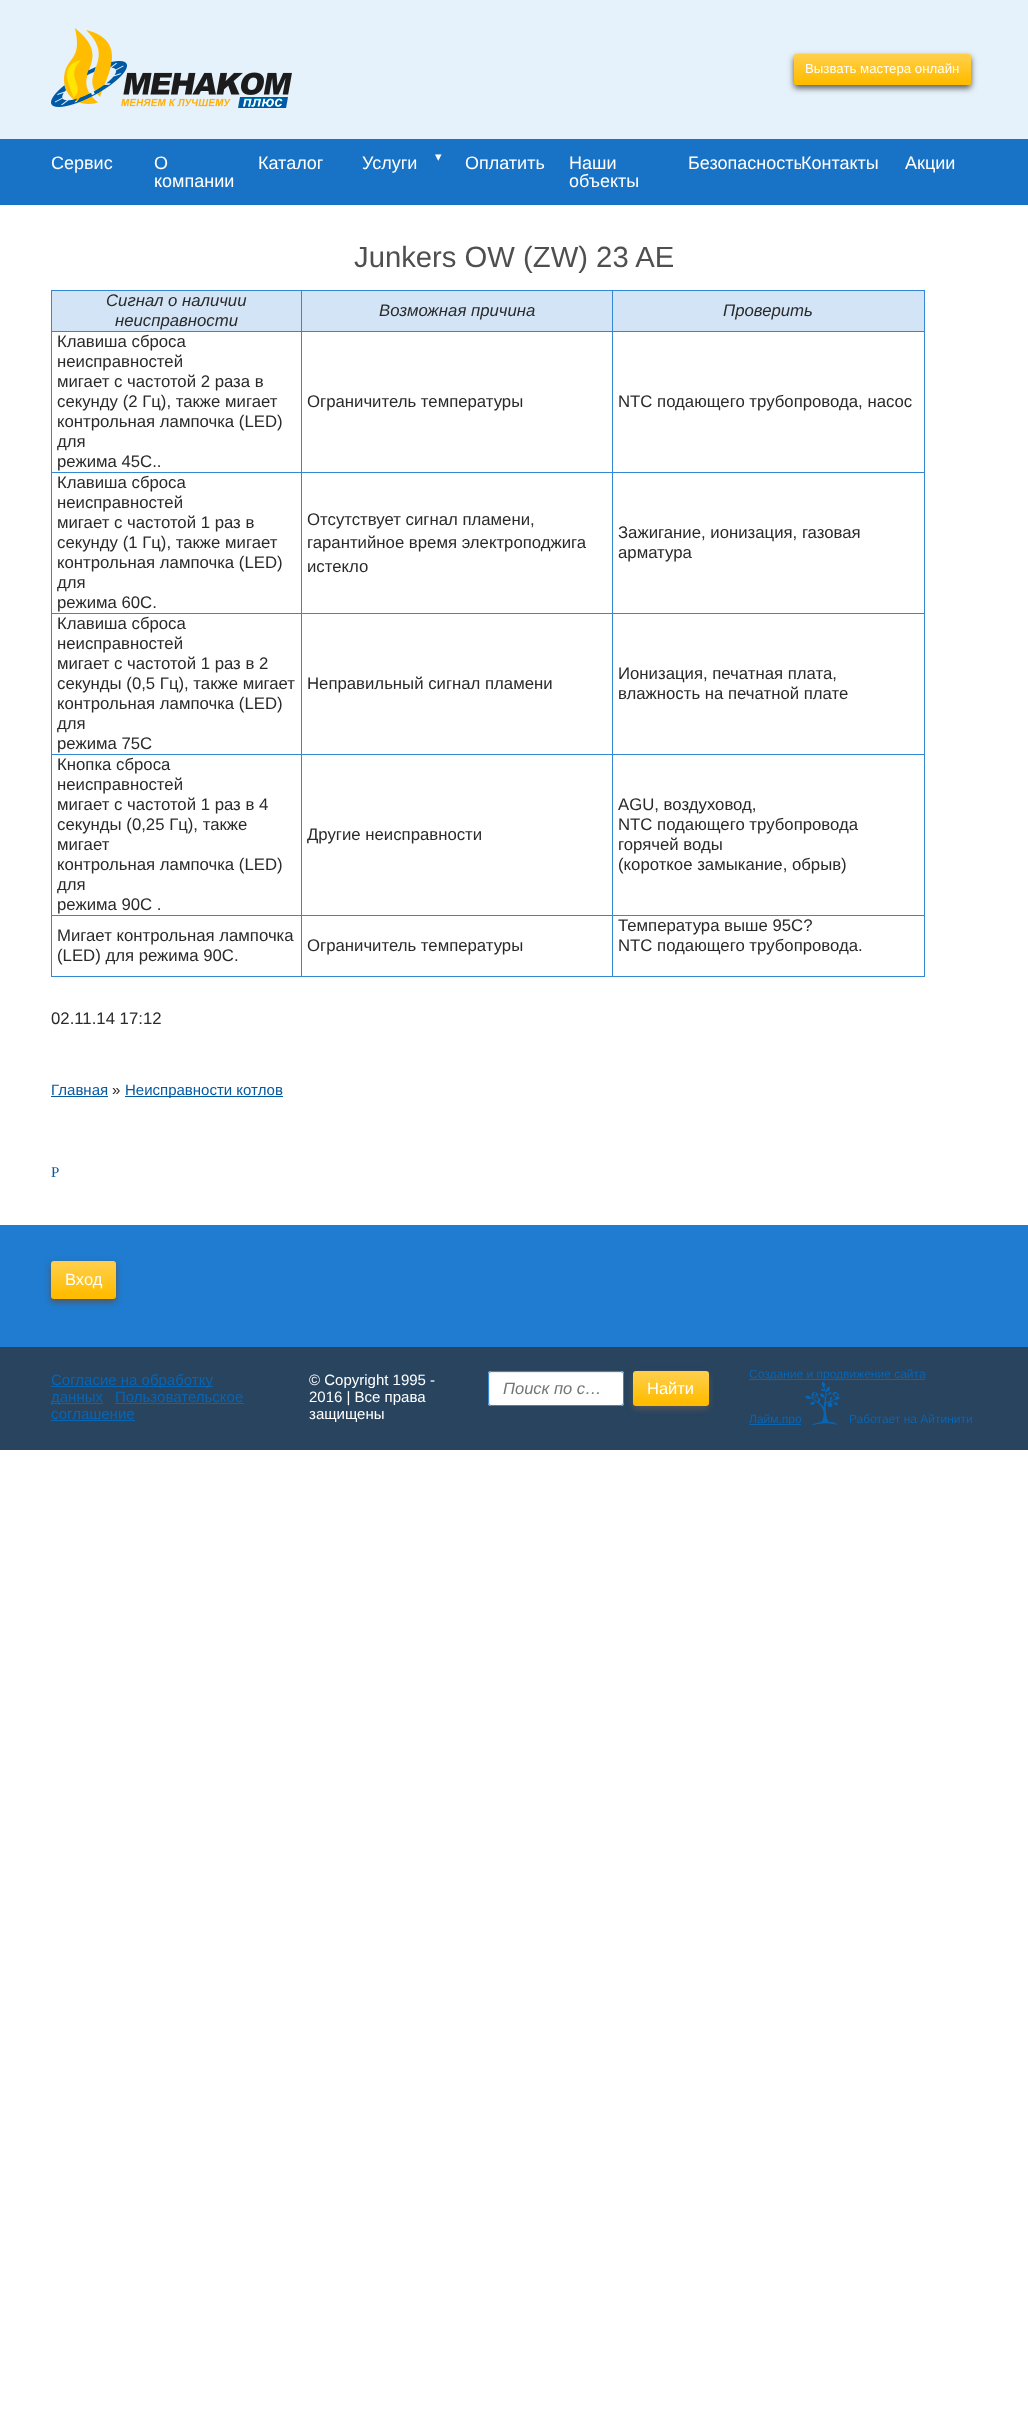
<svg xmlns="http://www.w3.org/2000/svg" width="1028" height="2419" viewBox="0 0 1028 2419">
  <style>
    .t1 { font: 13.25px Liberation Sans; fill: #fff; }
    .t2 { font: 18px Liberation Sans; fill: #fff; }
    .t3 { font: 13px DejaVu Sans; fill: #fff; }
    .t4 { font: 29.25px Liberation Sans; fill: #4f4f4f; }
    .t5 { font: italic 16.75px Liberation Sans; fill: #2b2a2a; }
    .t6 { font: 16.75px Liberation Sans; fill: #2b2a2a; }
    .t7 { font: 15px Liberation Sans; fill: #0559a1; }
    .t8 { font: 15px Liberation Sans; fill: #2b2a2a; }
    .t9 { font: 15px Liberation Serif; fill: #0559a1; }
    .t10 { font: 16.5px Liberation Sans; fill: #fff; }
    .t11 { font: 15px Liberation Sans; fill: #0865b4; }
    .t12 { font: 15px Liberation Sans; fill: #fff; }
    .t13 { font: italic 16.5px Liberation Sans; fill: #757575; }
    .t14 { font: 12px Liberation Sans; fill: #0865b4; }
  </style>
  <defs>
    <linearGradient id="g1" gradientUnits="userSpaceOnUse" x1="794" y1="85" x2="794" y2="54"><stop offset="0.1" stop-color="#ffbc00"/><stop offset="0.9" stop-color="#ffce46"/></linearGradient>
    <linearGradient id="g2" gradientUnits="userSpaceOnUse" x1="51" y1="1299" x2="51" y2="1261"><stop offset="0.1" stop-color="#ffbc00"/><stop offset="0.9" stop-color="#ffce46"/></linearGradient>
    <linearGradient id="g3" gradientUnits="userSpaceOnUse" x1="633" y1="1406" x2="633" y2="1371"><stop offset="0.1" stop-color="#ffbc00"/><stop offset="0.9" stop-color="#ffce46"/></linearGradient>
  </defs>
  <rect width="100%" height="100%" fill="#fff"/>
  <rect x="0" y="0" width="1028" height="139" fill="#e6f2fb"/>
  <image x="51" y="28" width="241" height="80" href="images/1.png"/>
  <rect x="794" y="57" width="177" height="31" rx="2.5" fill="#545454" filter="blur(3px)"/>
  <rect x="794" y="54" width="177" height="31" rx="2.5" fill="url(#g1)"/>
  <text x="805" y="73" class="t1">Вызвать мастера онлайн</text>
  <rect x="0" y="139" width="1028" height="66" fill="#1872c5"/>
  <text x="51" y="169" class="t2">Сервис</text>
  <text x="154" y="169" class="t2">О</text>
  <text x="154" y="187" class="t2">компании</text>
  <text x="258" y="169" class="t2">Каталог</text>
  <text x="362" y="169" class="t2">Услуги</text>
  <text x="435" y="161" class="t3">▾</text>
  <text x="465" y="169" class="t2">Оплатить</text>
  <text x="569" y="169" class="t2">Наши</text>
  <text x="569" y="187" class="t2">объекты</text>
  <text x="688" y="169" class="t2">Безопасность</text>
  <rect x="801" y="163" width="2" height="6" fill="#1872c5"/>
  <text x="801" y="169" class="t2">Контакты</text>
  <text x="905" y="169" class="t2">Акции</text>
  <text x="354" y="267" class="t4">Junkers OW (ZW) 23 AE</text>
  <rect x="52" y="291" width="249" height="40" fill="#d2e4f5"/>
  <rect x="612" y="290" width="313" height="1" fill="#3487d3"/>
  <rect x="612" y="331" width="313" height="1" fill="#3487d3"/>
  <rect x="612" y="472" width="313" height="1" fill="#3487d3"/>
  <rect x="612" y="613" width="313" height="1" fill="#3487d3"/>
  <rect x="612" y="754" width="313" height="1" fill="#3487d3"/>
  <rect x="612" y="915" width="313" height="1" fill="#3487d3"/>
  <rect x="924" y="915" width="1" height="62" fill="#3487d3"/>
  <rect x="612" y="976" width="313" height="1" fill="#3487d3"/>
  <rect x="612" y="915" width="1" height="62" fill="#3487d3"/>
  <rect x="301" y="915" width="312" height="1" fill="#3487d3"/>
  <rect x="612" y="754" width="1" height="162" fill="#3487d3"/>
  <rect x="301" y="754" width="312" height="1" fill="#3487d3"/>
  <rect x="612" y="613" width="1" height="142" fill="#3487d3"/>
  <rect x="301" y="613" width="312" height="1" fill="#3487d3"/>
  <rect x="612" y="472" width="1" height="142" fill="#3487d3"/>
  <rect x="301" y="472" width="312" height="1" fill="#3487d3"/>
  <rect x="612" y="331" width="1" height="142" fill="#3487d3"/>
  <rect x="301" y="331" width="312" height="1" fill="#3487d3"/>
  <rect x="612" y="290" width="1" height="42" fill="#3487d3"/>
  <rect x="301" y="290" width="312" height="1" fill="#3487d3"/>
  <rect x="301" y="976" width="312" height="1" fill="#3487d3"/>
  <rect x="301" y="915" width="1" height="62" fill="#3487d3"/>
  <rect x="51" y="915" width="251" height="1" fill="#3487d3"/>
  <rect x="301" y="754" width="1" height="162" fill="#3487d3"/>
  <rect x="51" y="754" width="251" height="1" fill="#3487d3"/>
  <rect x="301" y="613" width="1" height="142" fill="#3487d3"/>
  <rect x="51" y="613" width="251" height="1" fill="#3487d3"/>
  <rect x="301" y="472" width="1" height="142" fill="#3487d3"/>
  <rect x="51" y="472" width="251" height="1" fill="#3487d3"/>
  <rect x="301" y="331" width="1" height="142" fill="#3487d3"/>
  <rect x="51" y="331" width="251" height="1" fill="#3487d3"/>
  <rect x="301" y="290" width="1" height="42" fill="#3487d3"/>
  <rect x="51" y="290" width="251" height="1" fill="#3487d3"/>
  <rect x="51" y="976" width="251" height="1" fill="#3487d3"/>
  <rect x="51" y="915" width="1" height="62" fill="#3487d3"/>
  <rect x="51" y="754" width="1" height="162" fill="#3487d3"/>
  <rect x="51" y="613" width="1" height="142" fill="#3487d3"/>
  <rect x="51" y="472" width="1" height="142" fill="#3487d3"/>
  <rect x="51" y="331" width="1" height="142" fill="#3487d3"/>
  <rect x="51" y="290" width="1" height="42" fill="#3487d3"/>
  <text x="106" y="306" class="t5">Сигнал о наличии</text>
  <text x="115" y="326" class="t5">неисправности</text>
  <rect x="302" y="291" width="310" height="40" fill="#d2e4f5"/>
  <text x="379" y="316" class="t5">Возможная причина</text>
  <rect x="613" y="291" width="311" height="40" fill="#d2e4f5"/>
  <rect x="924" y="754" width="1" height="162" fill="#3487d3"/>
  <rect x="924" y="613" width="1" height="142" fill="#3487d3"/>
  <rect x="924" y="472" width="1" height="142" fill="#3487d3"/>
  <rect x="924" y="331" width="1" height="142" fill="#3487d3"/>
  <rect x="924" y="290" width="1" height="42" fill="#3487d3"/>
  <text x="723" y="316" class="t5">Проверить</text>
  <text x="57" y="347" class="t6">Клавиша сброса</text>
  <text x="57" y="367" class="t6">неисправностей</text>
  <text x="57" y="387" class="t6">мигает с частотой 2 раза в</text>
  <text x="57" y="407" class="t6">секунду (2 Гц), также мигает</text>
  <text x="57" y="427" class="t6">контрольная лампочка (LED)</text>
  <text x="57" y="447" class="t6">для</text>
  <text x="57" y="467" class="t6">режима 45С..</text>
  <text x="307" y="407" class="t6">Ограничитель температуры</text>
  <text x="618" y="407" class="t6">NTC подающего трубопровода, насос</text>
  <text x="57" y="488" class="t6">Клавиша сброса</text>
  <text x="57" y="508" class="t6">неисправностей</text>
  <text x="57" y="528" class="t6">мигает с частотой 1 раз в</text>
  <text x="57" y="548" class="t6">секунду (1 Гц), также мигает</text>
  <text x="57" y="568" class="t6">контрольная лампочка (LED)</text>
  <text x="57" y="588" class="t6">для</text>
  <text x="57" y="608" class="t6">режима 60С.</text>
  <text x="307" y="525" class="t6">Отсутствует сигнал пламени,</text>
  <text x="307" y="548" class="t6">гарантийное время электроподжига</text>
  <text x="307" y="572" class="t6">истекло</text>
  <text x="618" y="538" class="t6">Зажигание, ионизация, газовая</text>
  <text x="618" y="558" class="t6">арматура</text>
  <text x="57" y="629" class="t6">Клавиша сброса</text>
  <text x="57" y="649" class="t6">неисправностей</text>
  <text x="57" y="669" class="t6">мигает с частотой 1 раз в 2</text>
  <text x="57" y="689" class="t6">секунды (0,5 Гц), также мигает</text>
  <text x="57" y="709" class="t6">контрольная лампочка (LED)</text>
  <text x="57" y="729" class="t6">для</text>
  <text x="57" y="749" class="t6">режима 75С</text>
  <text x="307" y="689" class="t6">Неправильный сигнал пламени</text>
  <text x="618" y="679" class="t6">Ионизация, печатная плата,</text>
  <text x="618" y="699" class="t6">влажность на печатной плате</text>
  <text x="57" y="770" class="t6">Кнопка сброса</text>
  <text x="57" y="790" class="t6">неисправностей</text>
  <text x="57" y="810" class="t6">мигает с частотой 1 раз в 4</text>
  <text x="57" y="830" class="t6">секунды (0,25 Гц), также</text>
  <text x="57" y="850" class="t6">мигает</text>
  <text x="57" y="870" class="t6">контрольная лампочка (LED)</text>
  <text x="57" y="890" class="t6">для</text>
  <text x="57" y="910" class="t6">режима 90С .</text>
  <text x="307" y="840" class="t6">Другие неисправности</text>
  <text x="618" y="810" class="t6">AGU, воздуховод,</text>
  <text x="618" y="830" class="t6">NTC подающего трубопровода</text>
  <text x="618" y="850" class="t6">горячей воды</text>
  <text x="618" y="870" class="t6">(короткое замыкание, обрыв)</text>
  <text x="57" y="941" class="t6">Мигает контрольная лампочка</text>
  <text x="57" y="961" class="t6">(LED) для режима 90С.</text>
  <text x="307" y="951" class="t6">Ограничитель температуры</text>
  <text x="618" y="931" class="t6">Температура выше 95C?</text>
  <text x="618" y="951" class="t6">NTC подающего трубопровода.</text>
  <text x="51" y="1024" class="t6">02.11.14 17:12</text>
  <text x="51" y="1095" class="t7">Главная</text>
  <rect x="51" y="1096" width="57" height="1" fill="#0559a1"/>
  <text x="112" y="1095" class="t8">»</text>
  <rect x="125" y="1096" width="158" height="1" fill="#0559a1"/>
  <text x="125" y="1095" class="t7">Неисправности котлов</text>
  <text x="51" y="1177" class="t9">P</text>
  <rect x="0" y="1225" width="1028" height="122" fill="#1f7cd1"/>
  <rect x="51" y="1264" width="65" height="38" rx="3" fill="#545454" filter="blur(3px)"/>
  <rect x="51" y="1261" width="65" height="38" rx="3" fill="url(#g2)"/>
  <text x="65" y="1285" class="t10">Вход</text>
  <rect x="0" y="1347" width="1028" height="103" fill="#28445f"/>
  <rect x="51" y="1386" width="162" height="1" fill="#0865b4"/>
  <text x="51" y="1385" class="t11">Согласие на обработку</text>
  <rect x="51" y="1403" width="52" height="1" fill="#0865b4"/>
  <text x="51" y="1402" class="t11">данных</text>
  <text x="115" y="1402" class="t11">Пользовательское</text>
  <rect x="115" y="1403" width="129" height="1" fill="#0865b4"/>
  <text x="51" y="1419" class="t11">соглашение</text>
  <rect x="51" y="1420" width="84" height="1" fill="#0865b4"/>
  <text x="309" y="1385" class="t12">© Copyright 1995 -</text>
  <text x="309" y="1402" class="t12">2016 | Все права</text>
  <text x="309" y="1419" class="t12">защищены</text>
  <rect x="488" y="1371" width="136" height="35" rx="3" fill="#fff"/>
  <path d="M492 1373H623C622 1372 621 1372 620 1372H492C490 1372 489 1373 489 1374V1402C489 1403 489 1404 490 1405V1380C490 1379 489 1373 492 1373Z" fill="#ebebeb"/>
  <rect x="488.5" y="1371.5" width="135" height="34" rx="2.5" fill="none" stroke="#3487d3"/>
  <text x="503" y="1394" class="t13">Поиск по с…</text>
  <rect x="633" y="1374" width="76" height="35" rx="3" fill="#545454" filter="blur(3px)"/>
  <rect x="633" y="1371" width="76" height="35" rx="3" fill="url(#g3)"/>
  <text x="647" y="1394" class="t10">Найти</text>
  <rect x="749" y="1379" width="176" height="1" fill="#0865b4"/>
  <text x="749" y="1378" class="t14">Создание и продвижение сайта</text>
  <rect x="749" y="1424" width="52" height="1" fill="#0865b4"/>
  <text x="749" y="1423" class="t14">Лайм.про</text>
  <image x="805" y="1381" width="35" height="45" href="images/2.png"/>
  <text x="849" y="1423" class="t14">Работает на Айтинити</text>
</svg>
